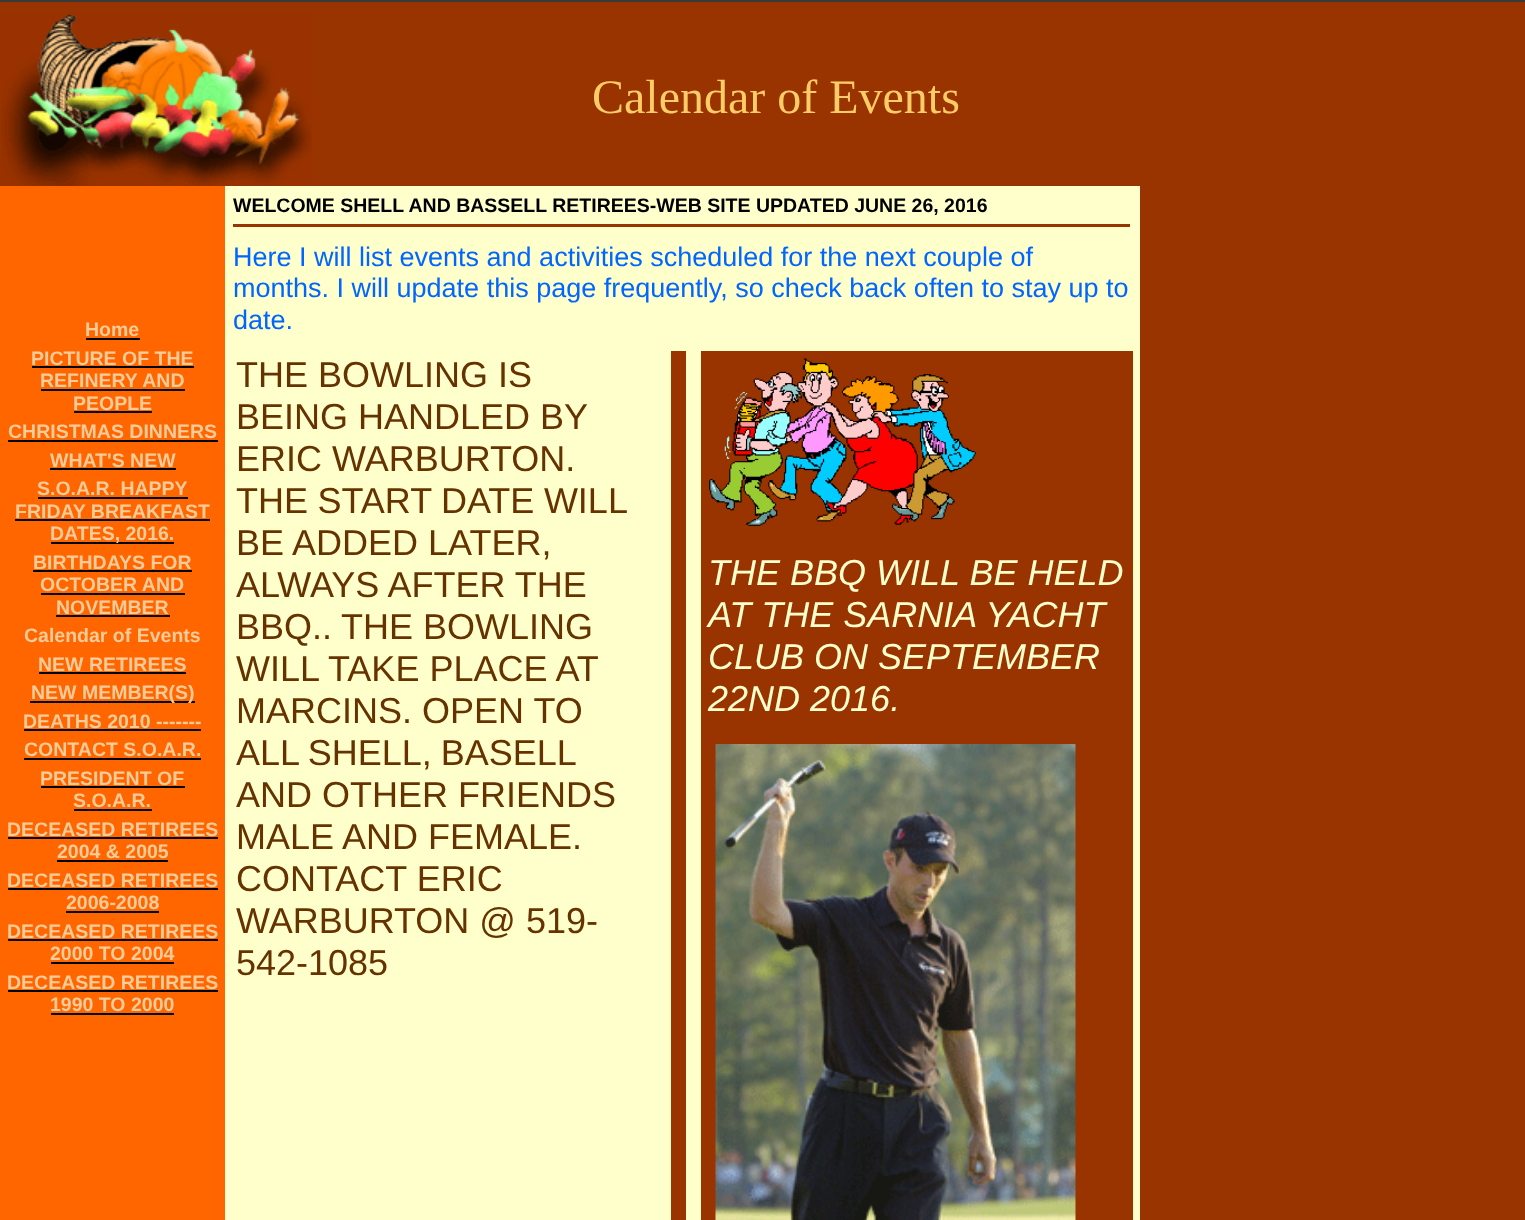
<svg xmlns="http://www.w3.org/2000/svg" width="1525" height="1220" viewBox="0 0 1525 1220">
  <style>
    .t1 { font: 48px Liberation Serif; fill: #fc6; }
    .t2 { font: bold 19.5px Liberation Sans; fill: #fc9; }
    .t3 { font: bold 19.5px Liberation Sans; fill: #000; }
    .t4 { font: 27px Liberation Sans; fill: #06f; }
    .t5 { font: 36px Liberation Sans; fill: #630; }
    .t6 { font: italic 36px Liberation Sans; fill: #ffc; }
  </style>
  <rect width="100%" height="100%" fill="#930"/>
  <rect x="0" y="0" width="1525" height="2" fill="#393939"/>
  <image x="1" y="14" width="311" height="172" href="images/1.png"/>
  <text x="592" y="113" class="t1">Calendar of Events</text>
  <rect x="0" y="186" width="225" height="1034" fill="#f60"/>
  <text x="85" y="336" class="t2">Home</text>
  <rect x="86" y="338" width="54" height="2" fill="#000"/>
  <text x="31" y="365" class="t2">PICTURE OF THE</text>
  <rect x="32" y="366" width="162" height="2" fill="#000"/>
  <text x="40" y="387" class="t2">REFINERY AND</text>
  <rect x="41" y="389" width="144" height="2" fill="#000"/>
  <text x="73" y="410" class="t2">PEOPLE</text>
  <rect x="74" y="411" width="78" height="2" fill="#000"/>
  <text x="8" y="438" class="t2">CHRISTMAS DINNERS</text>
  <rect x="8" y="440" width="210" height="2" fill="#000"/>
  <text x="50" y="467" class="t2">WHAT'S NEW</text>
  <rect x="50" y="468" width="126" height="2" fill="#000"/>
  <text x="37" y="495" class="t2">S.O.A.R. HAPPY</text>
  <rect x="38" y="497" width="150" height="2" fill="#000"/>
  <text x="15" y="518" class="t2">FRIDAY BREAKFAST</text>
  <rect x="15" y="519" width="195" height="2" fill="#000"/>
  <rect x="51" y="542" width="123" height="2" fill="#000"/>
  <text x="50" y="540" class="t2">DATES, 2016.</text>
  <text x="33" y="569" class="t2">BIRTHDAYS FOR</text>
  <rect x="33" y="570" width="159" height="2" fill="#000"/>
  <text x="40" y="591" class="t2">OCTOBER AND</text>
  <rect x="41" y="593" width="144" height="2" fill="#000"/>
  <text x="56" y="614" class="t2">NOVEMBER</text>
  <rect x="56" y="615" width="114" height="2" fill="#000"/>
  <text x="24" y="642" class="t2">Calendar of Events</text>
  <text x="38" y="671" class="t2">NEW RETIREES</text>
  <rect x="39" y="672" width="147" height="2" fill="#000"/>
  <rect x="30" y="701" width="165" height="2" fill="#000"/>
  <text x="31" y="699" class="t2">NEW MEMBER(S)</text>
  <text x="23" y="728" class="t2">DEATHS 2010 -------</text>
  <rect x="24" y="729" width="177" height="2" fill="#000"/>
  <text x="24" y="756" class="t2">CONTACT S.O.A.R.</text>
  <rect x="24" y="758" width="177" height="2" fill="#000"/>
  <text x="40" y="785" class="t2">PRESIDENT OF</text>
  <rect x="41" y="786" width="144" height="2" fill="#000"/>
  <text x="73" y="807" class="t2">S.O.A.R.</text>
  <rect x="74" y="809" width="78" height="2" fill="#000"/>
  <text x="7" y="836" class="t2">DECEASED RETIREES</text>
  <rect x="8" y="837" width="210" height="2" fill="#000"/>
  <text x="57" y="858" class="t2">2004 &amp; 2005</text>
  <rect x="57" y="860" width="111" height="2" fill="#000"/>
  <text x="7" y="887" class="t2">DECEASED RETIREES</text>
  <rect x="8" y="888" width="210" height="2" fill="#000"/>
  <text x="66" y="909" class="t2">2006-2008</text>
  <rect x="66" y="911" width="93" height="2" fill="#000"/>
  <text x="7" y="938" class="t2">DECEASED RETIREES</text>
  <rect x="8" y="939" width="210" height="2" fill="#000"/>
  <text x="50" y="960" class="t2">2000 TO 2004</text>
  <rect x="51" y="962" width="123" height="2" fill="#000"/>
  <text x="7" y="989" class="t2">DECEASED RETIREES</text>
  <rect x="8" y="990" width="210" height="2" fill="#000"/>
  <text x="50" y="1011" class="t2">1990 TO 2000</text>
  <rect x="51" y="1013" width="123" height="2" fill="#000"/>
  <rect x="225" y="186" width="915" height="1034" fill="#ffc"/>
  <text x="233" y="212" class="t3">WELCOME SHELL AND BASSELL RETIREES-WEB SITE UPDATED JUNE 26, 2016</text>
  <rect x="233" y="224" width="897" height="3" fill="#930"/>
  <text x="233" y="266" class="t4">Here I will list events and activities scheduled for the next couple of</text>
  <text x="233" y="297" class="t4">months. I will update this page frequently, so check back often to stay up to</text>
  <text x="233" y="329" class="t4">date.</text>
  <text x="236" y="387" class="t5">THE BOWLING IS</text>
  <text x="236" y="429" class="t5">BEING HANDLED BY</text>
  <text x="236" y="471" class="t5">ERIC WARBURTON.</text>
  <text x="236" y="513" word-spacing="-0.5" class="t5">THE START DATE WILL</text>
  <text x="236" y="555" class="t5">BE ADDED LATER,</text>
  <text x="236" y="597" class="t5">ALWAYS AFTER THE</text>
  <text x="236" y="639" class="t5">BBQ..</text>
  <text x="341" y="639" class="t5">THE BOWLING</text>
  <text x="236" y="681" class="t5">WILL TAKE PLACE AT</text>
  <text x="236" y="723" class="t5">MARCINS. OPEN TO</text>
  <text x="236" y="765" word-spacing="-1" class="t5">ALL SHELL, BASELL</text>
  <text x="236" y="807" class="t5">AND OTHER FRIENDS</text>
  <text x="236" y="849" class="t5">MALE AND FEMALE.</text>
  <text x="236" y="891" class="t5">CONTACT ERIC</text>
  <text x="236" y="933" class="t5">WARBURTON @ 519-</text>
  <text x="236" y="975" class="t5">542-1085</text>
  <rect x="671" y="351" width="15" height="869" fill="#930"/>
  <rect x="701" y="351" width="432" height="869" fill="#930"/>
  <image x="709" y="358" width="267" height="168" href="images/2.png"/>
  <text x="708" y="585" class="t6">THE BBQ WILL BE HELD</text>
  <text x="708" y="627" class="t6">AT THE SARNIA YACHT</text>
  <text x="708" y="669" class="t6">CLUB ON SEPTEMBER</text>
  <text x="708" y="711" class="t6">22ND 2016.</text>
  <image x="715" y="744" width="361" height="476" href="images/3.png"/>
</svg>
